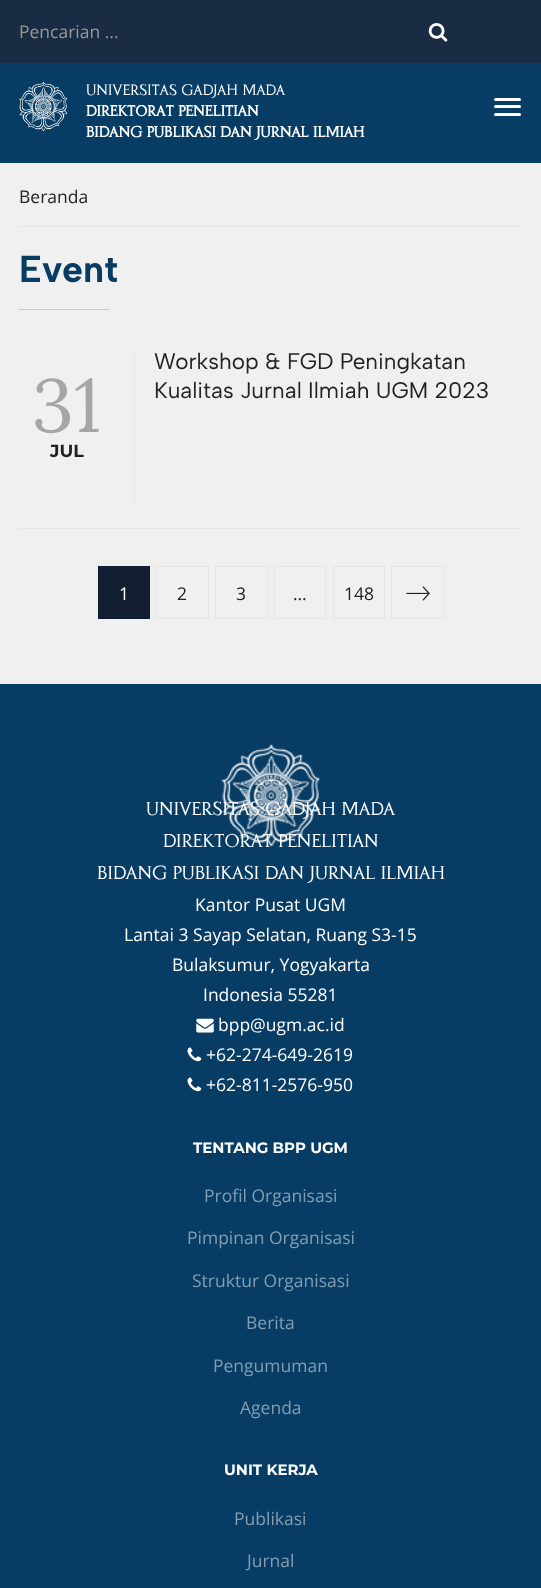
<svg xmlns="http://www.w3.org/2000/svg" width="541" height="1588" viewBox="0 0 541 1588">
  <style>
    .t1 { font: 17.5px Open Sans; fill: #999; }
    .t2 { font: 15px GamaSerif; fill: #fff; }
    .t3 { font: bold 15px GamaSerif; fill: #fff; }
    .t4 { font: 17.5px Open Sans; fill: #222; }
    .t5 { font: bold 37.5px Albert Sans; fill: #073c64; }
    .t6 { font: 75px Lora; fill: #a6a6a6; }
    .t7 { font: bold 17.5px Montserrat; fill: #222; }
    .t8 { font: 22.5px Albert Sans; fill: #222; }
    .t9 { font: 17.5px Open Sans; fill: #fff; }
    .t10 { font: 18.75px GamaSerif; fill: #fff; }
    .t11 { font: bold 15px Montserrat; fill: #fff; }
    .t12 { font: 17.5px Open Sans; fill: #839eb2; }
  </style>
  <rect width="100%" height="100%" fill="#f0f0f0"/>
  <rect x="0" y="63" width="541" height="100" fill="#073c64"/>
  <rect x="0" y="0" width="541" height="63" fill="#1a2c43"/>
  <text x="19" y="38" class="t1">Pencarian ...</text>
  <image x="428" y="23" width="20" height="19" href="images/1.png"/>
  <image x="18" y="81" width="50" height="51" href="images/2.png"/>
  <text x="86" y="95" class="t2">UNIVERSITAS GADJAH MADA</text>
  <text x="86" y="116" class="t3">DIREKTORAT PENELITIAN</text>
  <text x="86" y="137" class="t3">BIDANG PUBLIKASI DAN JURNAL ILMIAH</text>
  <rect x="494" y="98" width="27" height="3" rx="1.5" fill="#fff"/>
  <rect x="494" y="105" width="27" height="3" rx="1.5" fill="#fff"/>
  <rect x="494" y="113" width="27" height="3" rx="1.5" fill="#fff"/>
  <rect x="19" y="226" width="504" height="1" fill="#e6e6e6"/>
  <text x="19" y="203" class="t4">Beranda</text>
  <text x="19" y="282" class="t5">Event</text>
  <rect x="19" y="309" width="90" height="1" fill="#fdcb2c"/>
  <rect x="19" y="528" width="504" height="1" fill="#e6e6e6"/>
  <rect x="134" y="348" width="1" height="155" fill="#e6e6e6"/>
  <text x="32" y="432" class="t6">31</text>
  <text x="50" y="457" class="t7">JUL</text>
  <text x="154" y="369" class="t8">Workshop &amp; FGD Peningkatan</text>
  <text x="154" y="398" class="t8">Kualitas Jurnal Ilmiah UGM 2023</text>
  <rect x="98" y="566" width="52" height="53" fill="#121f33"/>
  <text x="119" y="600" class="t9">1</text>
  <rect x="156.5" y="566.5" width="52" height="52" fill="none" stroke="#e6e6e6"/>
  <text x="177" y="600" class="t4">2</text>
  <rect x="215.5" y="566.5" width="52" height="52" fill="none" stroke="#e6e6e6"/>
  <text x="236" y="600" class="t4">3</text>
  <rect x="274.5" y="566.5" width="51" height="52" fill="none" stroke="#e6e6e6"/>
  <text x="293" y="600" class="t4">…</text>
  <rect x="333.5" y="566.5" width="51" height="52" fill="none" stroke="#e6e6e6"/>
  <text x="344" y="600" class="t4">148</text>
  <rect x="391.5" y="566.5" width="52" height="52" fill="none" stroke="#e6e6e6"/>
  <image x="406" y="586" width="24" height="15" href="images/3.png"/>
  <rect x="0" y="684" width="541" height="904" fill="#073c64"/>
  <image x="221" y="743" width="99" height="104" href="images/4.png"/>
  <text x="146" y="815" class="t10">UNIVERSITAS GADJAH MADA</text>
  <text x="163" y="847" class="t10">DIREKTORAT PENELITIAN</text>
  <text x="97" y="879" class="t10">BIDANG PUBLIKASI DAN JURNAL ILMIAH</text>
  <text x="195" y="911" class="t9">Kantor Pusat UGM</text>
  <text x="124" y="941" class="t9">Lantai 3 Sayap Selatan, Ruang S3-15</text>
  <text x="172" y="971" class="t9">Bulaksumur, Yogyakarta</text>
  <text x="203" y="1001" class="t9">Indonesia 55281</text>
  <image x="196" y="1018" width="18" height="15" href="images/5.png"/>
  <text x="218" y="1031" class="t9">bpp@ugm.ac.id</text>
  <image x="187" y="1047" width="15" height="15" href="images/6.png"/>
  <text x="206" y="1061" class="t9">+62-274-649-2619</text>
  <image x="187" y="1077" width="15" height="15" href="images/6.png"/>
  <text x="206" y="1091" class="t9">+62-811-2576-950</text>
  <text x="193" y="1153" class="t11">TENTANG BPP UGM</text>
  <text x="204" y="1202" class="t12">Profil Organisasi</text>
  <text x="187" y="1244" class="t12">Pimpinan Organisasi</text>
  <text x="192" y="1287" class="t12">Struktur Organisasi</text>
  <text x="246" y="1329" class="t12">Berita</text>
  <text x="213" y="1372" class="t12">Pengumuman</text>
  <text x="240" y="1414" class="t12">Agenda</text>
  <text x="224" y="1475" class="t11">UNIT KERJA</text>
  <text x="234" y="1525" class="t12">Publikasi</text>
  <text x="247" y="1567" class="t12">Jurnal</text>
</svg>
